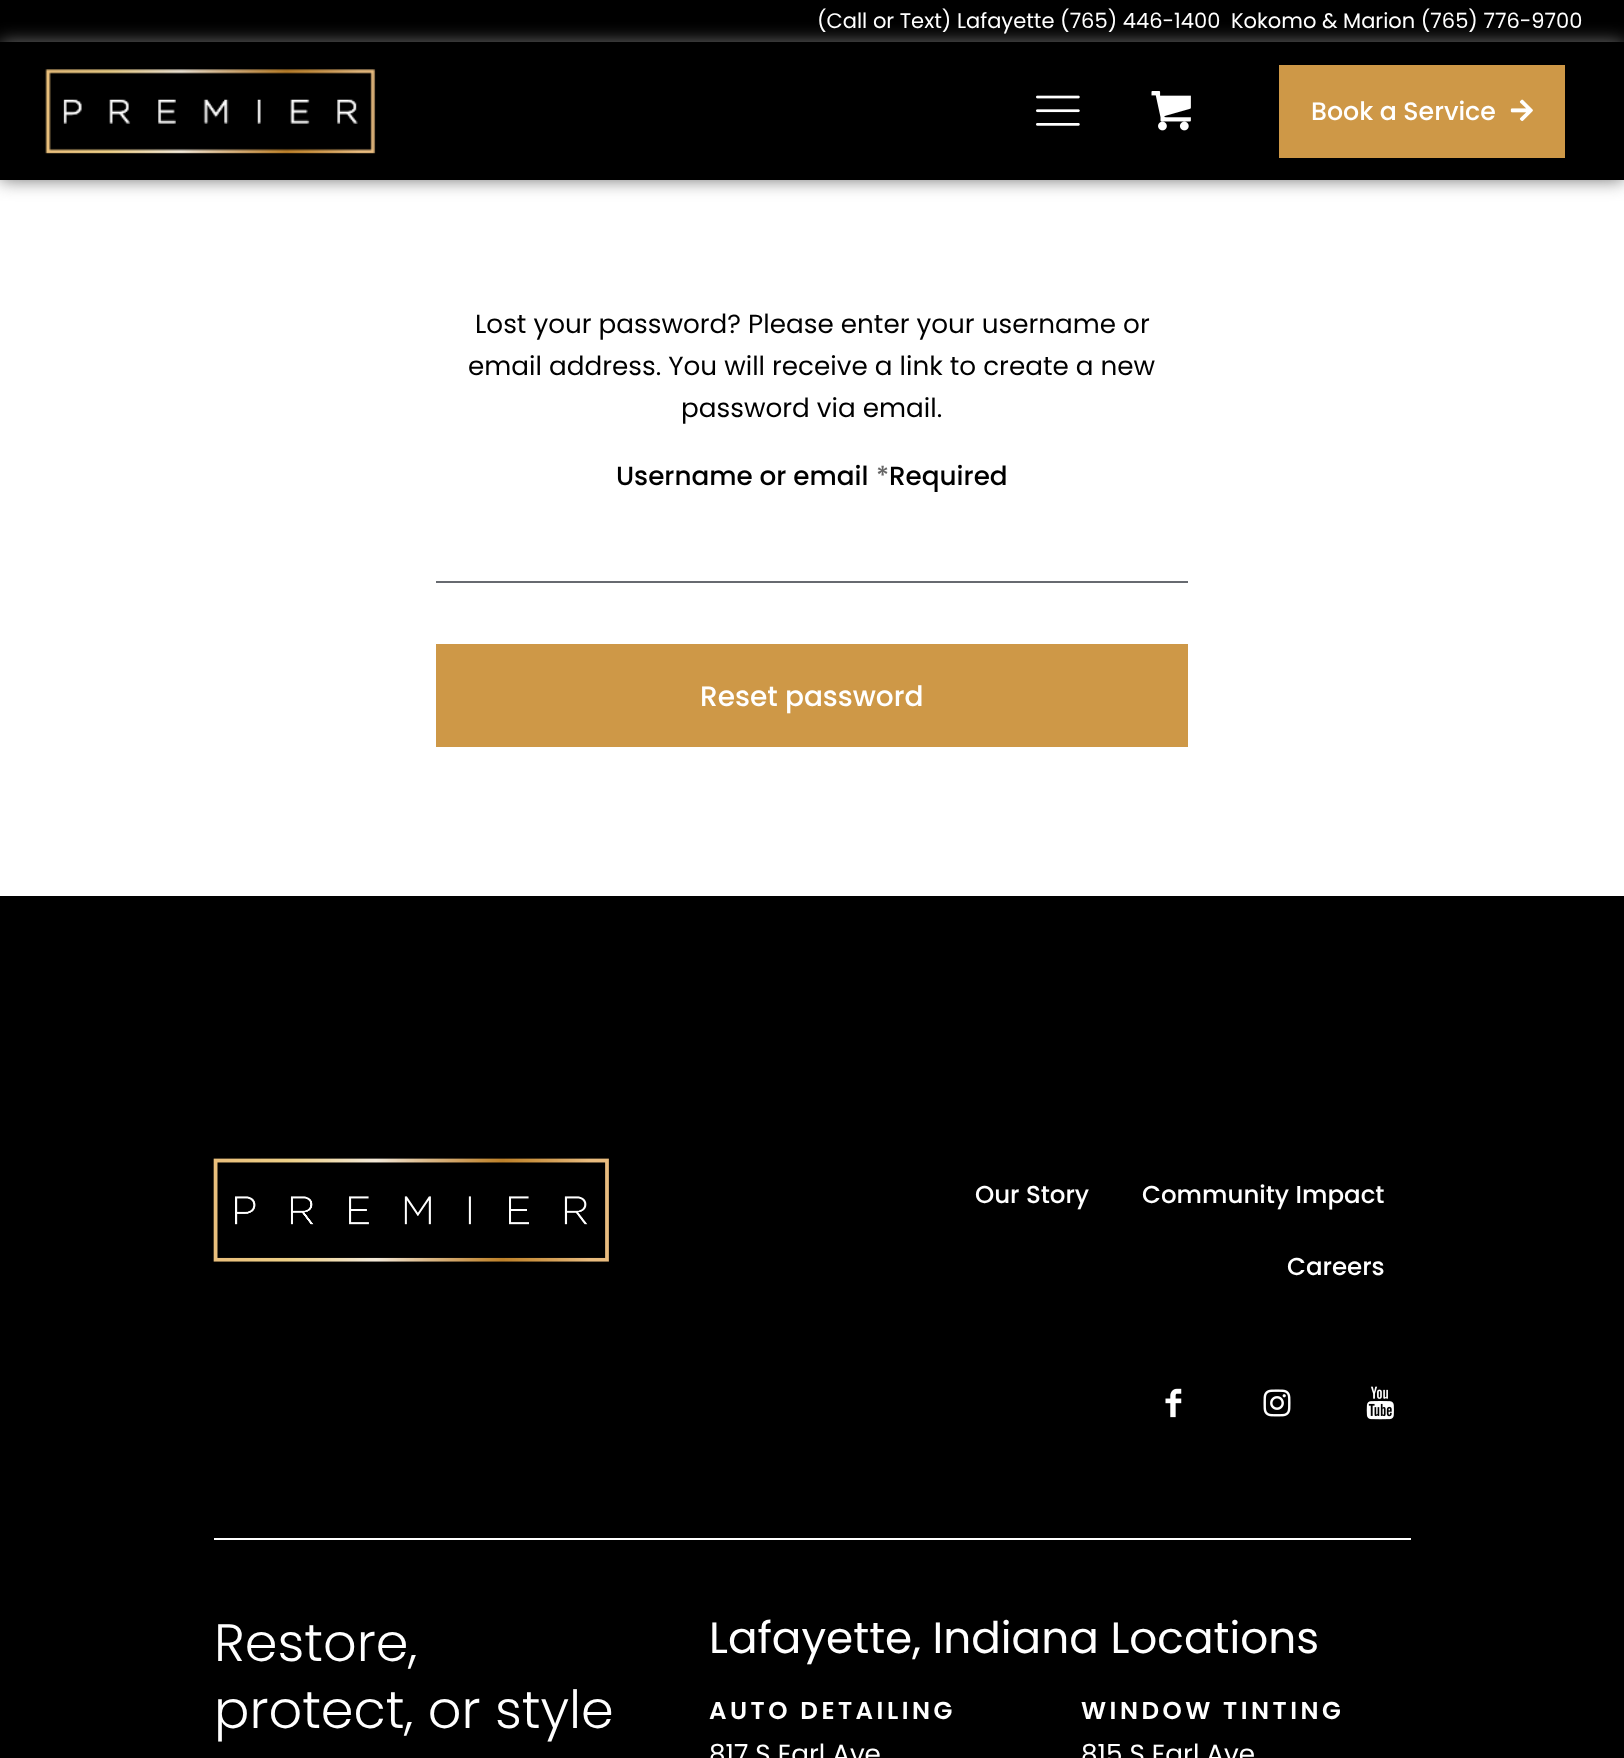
<svg xmlns="http://www.w3.org/2000/svg" width="1624" height="1758" viewBox="0 0 1624 1758">
  <style>
    .t1 { font: 21px Poppins; fill: #fff; }
    .t2 { font: 500 25.25px Poppins; fill: #fff; }
    .t3 { font: 26.25px Poppins; fill: #000; }
    .t4 { font: 500 26.25px Poppins; fill: #000; }
    .t5 { font: 500 26.25px Poppins; fill: #666; }
    .t6 { font: 500 28px Poppins; fill: #fff; }
    .t7 { font: 500 24.5px Poppins; fill: #fff; }
    .t8 { font: 300 52.5px Poppins; fill: #fff; }
    .t9 { font: 43.75px Poppins; fill: #fff; }
    .t10 { font: 600 24.5px Poppins; letter-spacing: 3.5px; fill: #fff; }
    .t11 { font: 26.25px Poppins; fill: #fff; }
  </style>
  <rect width="100%" height="100%" fill="#fff"/>
  <rect x="0" y="0" width="1624" height="42" fill="#000"/>
  <rect x="0" y="42" width="1624" height="138" fill="#727272" filter="blur(9px)"/>
  <text x="817" y="28" class="t1">(Call or Text) Lafayette (765) 446-1400</text>
  <text x="1231" y="28" class="t1">Kokomo &amp; Marion (765) 776-9700</text>
  <rect x="0" y="42" width="1624" height="138" fill="#000"/>
  <image x="45" y="69" width="331" height="85" href="images/1.png"/>
  <image x="1036" y="95" width="44" height="31" href="images/2.png"/>
  <image x="1151" y="91" width="40" height="40" href="images/3.png"/>
  <rect x="1279" y="65" width="286" height="93" fill="#ce9847"/>
  <text x="1311" y="120" class="t2">Book a Service</text>
  <image x="1510" y="99" width="23" height="23" href="images/4.png"/>
  <text x="475" y="333" class="t3">Lost your password? Please enter your username or</text>
  <text x="468" y="375" class="t3">email address. You will receive a link to create a new</text>
  <text x="681" y="417" class="t3">password via email.</text>
  <text x="616" y="485" class="t4">Username or email</text>
  <text x="876" y="485" class="t5">*</text>
  <text x="889" y="485" class="t4">Required</text>
  <rect x="436" y="581" width="752" height="2" fill="#676a70"/>
  <rect x="436" y="644" width="752" height="103" fill="#ce9847"/>
  <text x="700" y="706" class="t6">Reset password</text>
  <rect x="0" y="896" width="1624" height="862" fill="#000"/>
  <image x="213" y="1158" width="396" height="104" href="images/5.png"/>
  <text x="975" y="1203" class="t7">Our Story</text>
  <text x="1142" y="1203" class="t7">Community Impact</text>
  <text x="1287" y="1275" class="t7">Careers</text>
  <image x="1165" y="1388" width="17" height="30" href="images/6.png"/>
  <image x="1263" y="1389" width="28" height="28" href="images/7.png"/>
  <image x="1366" y="1386" width="28" height="34" href="images/8.png"/>
  <rect x="214" y="1538" width="1197" height="2" fill="#fff"/>
  <text x="214" y="1661" class="t8">Restore,</text>
  <text x="214" y="1728" class="t8">protect, or style</text>
  <text x="709" y="1653" class="t9">Lafayette, Indiana Locations</text>
  <text x="709" y="1719" class="t10">AUTO DETAILING</text>
  <text x="709" y="1763" class="t11">817 S Earl Ave</text>
  <text x="1081" y="1719" class="t10">WINDOW TINTING</text>
  <text x="1081" y="1763" class="t11">815 S Earl Ave</text>
</svg>
